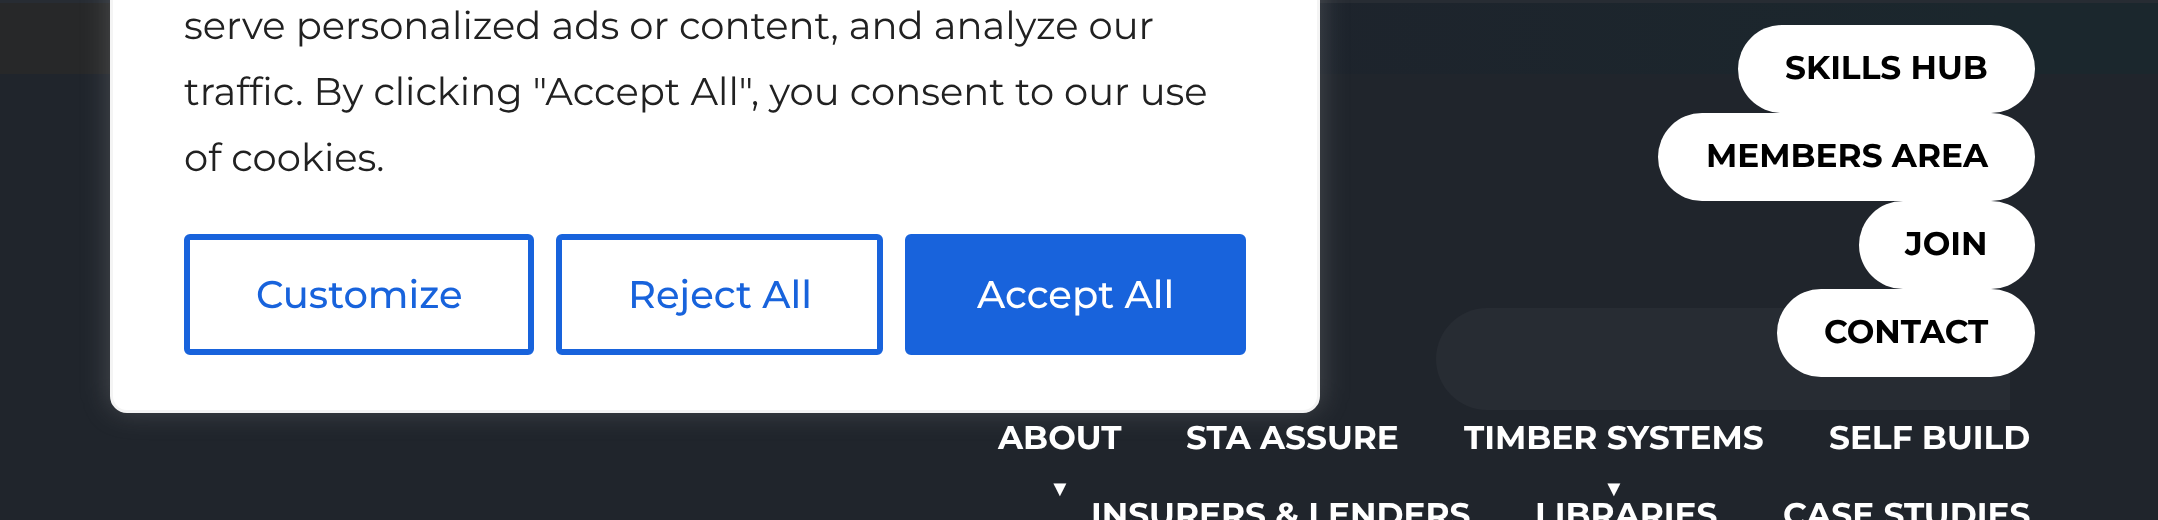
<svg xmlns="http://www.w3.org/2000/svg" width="2158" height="520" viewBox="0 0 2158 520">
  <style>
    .t1 { font: 38.5px Montserrat; fill: #212121; }
    .t2 { font: 500 38.5px Montserrat; fill: #1863dc; }
    .t3 { font: 500 38.5px Montserrat; fill: #fff; }
    .t4 { font: bold 32.75px Montserrat; fill: #000; }
    .t5 { font: bold 32.75px Montserrat; fill: #fff; }
    .t6 { font: bold 22px Liberation Sans; fill: #fff; }
  </style>
  <defs>
    <linearGradient id="g1" gradientUnits="userSpaceOnUse" x1="0" y1="39" x2="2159" y2="38"><stop offset="0.07" stop-color="#272829"/><stop offset="0.46" stop-color="#1e232c"/><stop offset="0.54" stop-color="#1e232c"/><stop offset="0.93" stop-color="#1b272d"/></linearGradient>
  </defs>
  <rect width="100%" height="100%" fill="#272c33"/>
  <rect x="0" y="3" width="2158" height="71" fill="url(#g1)"/>
  <rect x="0" y="74" width="2158" height="446" fill="#20252c"/>
  <rect x="110" y="-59" width="1210" height="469" rx="17" fill="#acabab4d" filter="blur(14px)"/>
  <rect x="111.5" y="-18.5" width="1207" height="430" rx="15.5" fill="#fff" stroke="#f4f4f4" stroke-width="3"/>
  <text x="184" y="39" class="t1">serve personalized ads or content, and analyze our</text>
  <text x="184" y="105" class="t1">traffic. By clicking "Accept All", you consent to our use</text>
  <text x="184" y="171" class="t1">of cookies.</text>
  <rect x="187" y="237" width="344" height="115" rx="3" fill="none" stroke="#1863dc" stroke-width="6"/>
  <text x="256" y="308" class="t2">Customize</text>
  <rect x="559" y="237" width="321" height="115" rx="3" fill="none" stroke="#1863dc" stroke-width="6"/>
  <text x="628" y="308" class="t2">Reject All</text>
  <rect x="908" y="237" width="335" height="115" rx="3" fill="#1863dc" stroke="#1863dc" stroke-width="6"/>
  <text x="977" y="308" class="t3">Accept All</text>
  <path d="M1487 308H2010V410H1487C1459 410 1436 387 1436 359C1436 331 1459 308 1487 308Z" fill="#272c33"/>
  <rect x="1738" y="25" width="297" height="88" rx="44" fill="#fff"/>
  <text x="1785" y="79" class="t4">SKILLS HUB</text>
  <rect x="1658" y="113" width="377" height="88" rx="44" fill="#fff"/>
  <text x="1706" y="167" class="t4">MEMBERS AREA</text>
  <rect x="1859" y="201" width="176" height="88" rx="44" fill="#fff"/>
  <text x="1905" y="255" class="t4">JOIN</text>
  <rect x="1777" y="289" width="258" height="88" rx="44" fill="#fff"/>
  <text x="1824" y="343" class="t4">CONTACT</text>
  <text x="998" y="449" class="t5">ABOUT</text>
  <text x="1049" y="496" class="t6">▼</text>
  <text x="1186" y="449" class="t5">STA ASSURE</text>
  <text x="1464" y="449" class="t5">TIMBER SYSTEMS</text>
  <text x="1603" y="496" class="t6">▼</text>
  <text x="1829" y="449" class="t5">SELF BUILD</text>
  <text x="1091" y="526" class="t5">INSURERS &amp; LENDERS</text>
  <text x="1535" y="526" class="t5">LIBRARIES</text>
  <text x="1783" y="526" class="t5">CASE STUDIES</text>
</svg>
